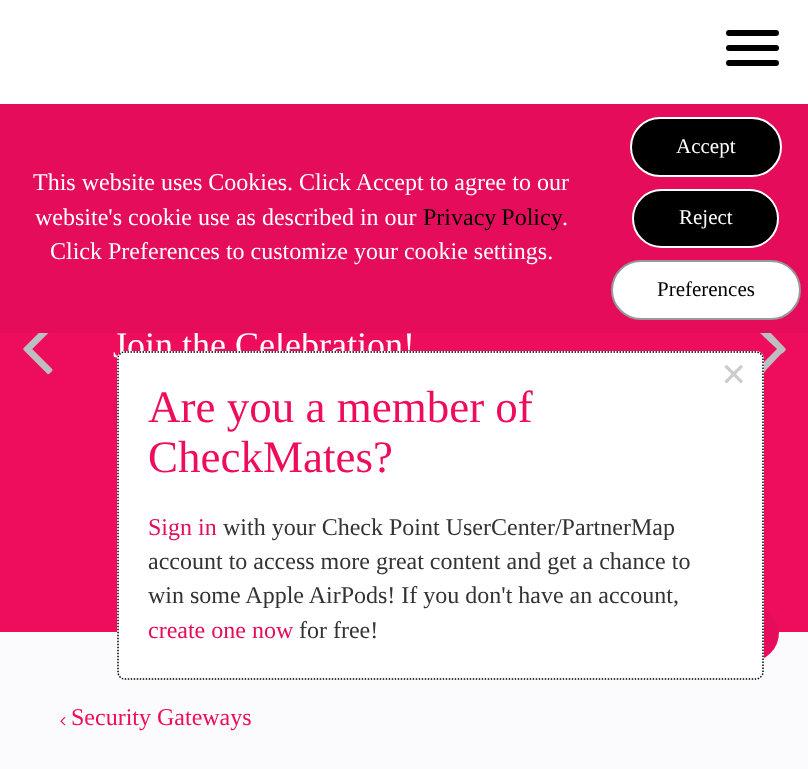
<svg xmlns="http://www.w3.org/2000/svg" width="808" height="769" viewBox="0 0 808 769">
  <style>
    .t1 { font: 36px Liberation Serif; fill: #fff; }
    .t2 { font: 24px Liberation Serif; fill: #fff; }
    .t3 { font: 24px Liberation Serif; fill: #000; }
    .t4 { font: 21px Liberation Serif; fill: #fff; }
    .t5 { font: 21px Liberation Serif; fill: #000; }
    .t6 { font: bold 45px Liberation Serif; fill: #ccc; }
    .t7 { font: 45px Liberation Serif; fill: #ee0c5d; }
    .t8 { font: 24px Liberation Serif; fill: #e40c5b; }
    .t9 { font: 24px Liberation Serif; fill: #333; }
    .t10 { font: 24px Liberation Serif; fill: #ee0c5d; }
  </style>
  <rect width="100%" height="100%" fill="#fbfbfd"/>
  <rect x="0" y="333" width="808" height="299" fill="#ee0c5d"/>
  <text x="113" y="357" class="t1">Join the Celebration!</text>
  <path d="M785 348C788 350 782 354 781 354L766 370C766 370 762 376 760 374C759 373 755 371 757 369L777 349L760 333C757 329 755 329 758 326C762 322 762 325 766 328Z" fill="#bcbec0"/>
  <rect x="0" y="104" width="808" height="229" fill="#e40c5b"/>
  <text x="33" y="190" class="t2">This website uses Cookies. Click Accept to agree to our</text>
  <text x="35" y="225" class="t2">website's cookie use as described in our</text>
  <text x="423" y="225" word-spacing="-1" class="t3">Privacy Policy</text>
  <text x="562" y="225" class="t2">.</text>
  <text x="50" y="259" class="t2">Click Preferences to customize your cookie settings.</text>
  <rect x="631" y="118" width="150" height="58" rx="29" fill="#000" stroke="#fff" stroke-width="2"/>
  <text x="676" y="153" class="t4">Accept</text>
  <rect x="633" y="190" width="145" height="57" rx="28.5" fill="#000" stroke="#fff" stroke-width="2"/>
  <text x="679" y="224" class="t4">Reject</text>
  <rect x="612" y="261" width="188" height="58" rx="29" fill="#fff" stroke="#999" stroke-width="2"/>
  <text x="657" y="296" class="t5">Preferences</text>
  <rect x="0" y="0" width="808" height="104" fill="#fff"/>
  <rect x="726" y="30" width="53" height="6" rx="3" fill="#000"/>
  <rect x="726" y="45" width="53" height="6" rx="3" fill="#000"/>
  <rect x="726" y="60" width="53" height="6" rx="3" fill="#000"/>
  <image x="23" y="333" width="30" height="42" href="images/1.png"/>
  <rect x="113" y="380" width="340" height="66" rx="27" fill="#e40c5b"/>
  <rect x="591" y="604" width="187" height="57" rx="28.5" fill="#e40c5b" stroke="#ee0c5d" stroke-width="2"/>
  <rect x="117" y="351" width="647" height="329" rx="8" fill="#fff"/>
  <path d="M124.5 352H756C759.5 352 763 355 763 358.5V672C763 675.5 759.5 679 756 679H124.5C121 679 118 675.5 118 672V358.5C118 355 121 352 124.5 352Z" fill="none" stroke="#000" stroke-width="1.5" stroke-dasharray="1.5 1.5"/>
  <text x="721" y="389" class="t6">×</text>
  <text x="148" y="422" class="t7">Are you a member of</text>
  <text x="148" y="472" class="t7">CheckMates?</text>
  <text x="148" y="535" class="t8">Sign in</text>
  <text x="223" y="535" class="t9">with your Check Point UserCenter/PartnerMap</text>
  <text x="148" y="569" class="t9">account to access more great content and get a chance to</text>
  <text x="148" y="603" class="t9">win some Apple AirPods! If you don't have an account,</text>
  <text x="148" y="638" class="t8">create one now</text>
  <text x="299" y="638" class="t9">for free!</text>
  <image x="60" y="717" width="6" height="9" href="images/2.png"/>
  <text x="71" y="725" class="t10">Security Gateways</text>
</svg>
